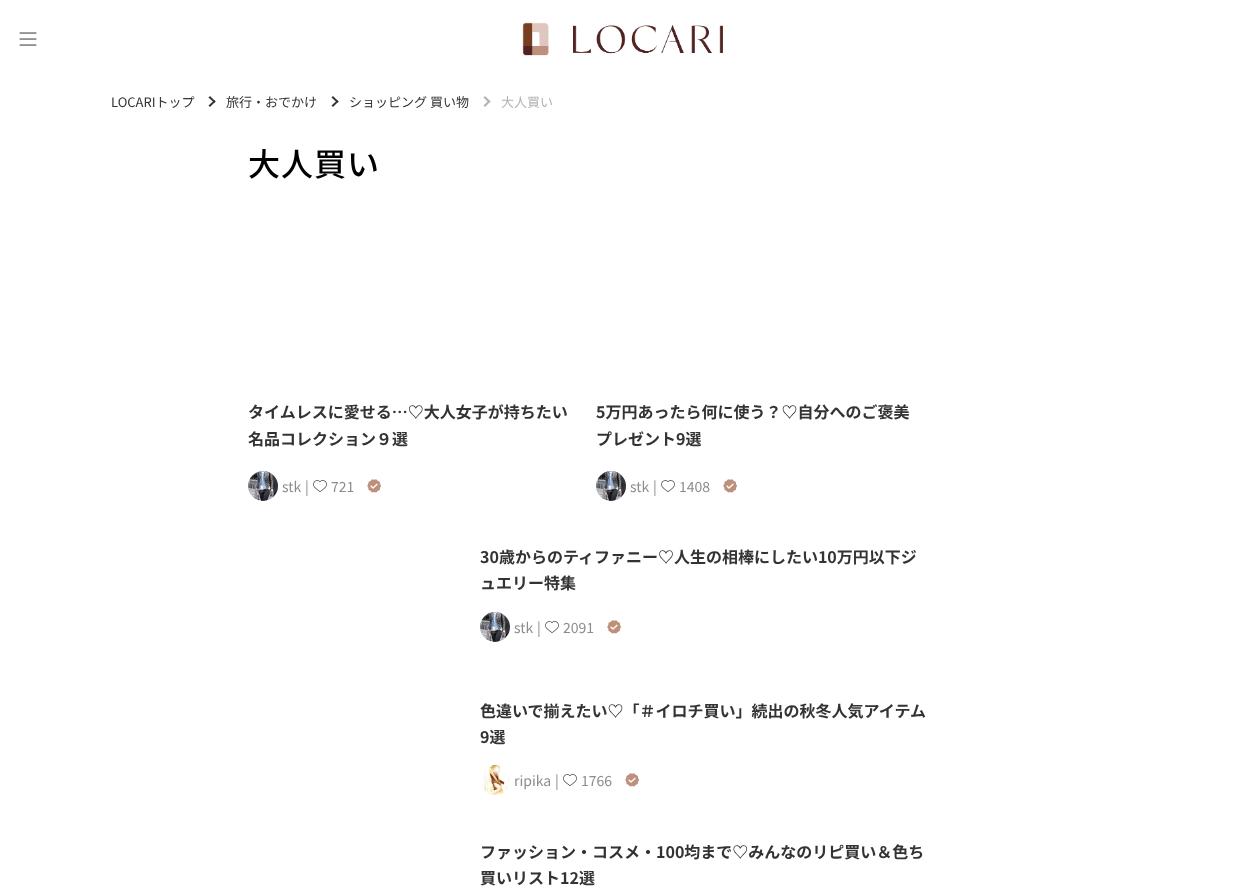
<svg xmlns="http://www.w3.org/2000/svg" width="1245" height="892" viewBox="0 0 1245 892">
  <style>
    .t1 { font: 13px Noto Sans JP; fill: #333; }
    .t2 { font: 13px Noto Sans JP; fill: #b2b2b2; }
    .t3 { font: 500 32px Noto Sans JP; letter-spacing: 1px; fill: #000; }
    .t4 { font: bold 16px Noto Sans JP; fill: #333; }
    .t5 { font: 14px Noto Sans JP; fill: #8c8c8c; }
  </style>
  <rect width="100%" height="100%" fill="#fff"/>
  <image x="19" y="32" width="18" height="14" href="images/1.png"/>
  <image x="522" y="22" width="201" height="34" href="images/2.png"/>
  <text x="111" y="107" class="t1">LOCARIトップ</text>
  <path d="M208.5 97.5L210 96L215.5 101.5L214.5 103Z" fill="#333"/>
  <path d="M208.5 105.5L214.5 100L215.5 101.5L210 107Z" fill="#333"/>
  <text x="226" y="107" class="t1">旅行・おでかけ</text>
  <path d="M331.5 97.5L333 96L338.5 101.5L337.5 103Z" fill="#333"/>
  <path d="M331.5 105.5L337.5 100L338.5 101.5L333 107Z" fill="#333"/>
  <text x="349" y="107" class="t1">ショッピング 買い物</text>
  <path d="M483.5 97.5L485 96L490.5 101.5L489 103Z" fill="#b2b2b2"/>
  <path d="M483.5 105.5L489 100L490.5 101.5L485 107Z" fill="#b2b2b2"/>
  <text x="501" y="107" class="t2">大人買い</text>
  <text x="248" y="176" class="t3">大人買い</text>
  <text x="248" y="418" class="t4">タイムレスに愛せる…♡大人女子が持ちたい</text>
  <text x="248" y="445" class="t4">名品コレクション９選</text>
  <image x="248" y="471" width="30" height="30" href="images/3.png"/>
  <text x="282" y="492" class="t5">stk</text>
  <text x="305" y="492" class="t5">|</text>
  <image x="313" y="480" width="14" height="12" href="images/4.png"/>
  <text x="331" y="492" class="t5">721</text>
  <image x="367" y="479" width="14" height="14" href="images/5.png"/>
  <text x="596" y="418" class="t4">5万円あったら何に使う？♡自分へのご褒美</text>
  <text x="596" y="445" class="t4">プレゼント9選</text>
  <image x="596" y="471" width="30" height="30" href="images/6.png"/>
  <text x="630" y="492" class="t5">stk</text>
  <text x="653" y="492" class="t5">|</text>
  <image x="661" y="480" width="14" height="12" href="images/4.png"/>
  <text x="679" y="492" class="t5">1408</text>
  <image x="723" y="479" width="14" height="14" href="images/5.png"/>
  <text x="480" y="563" class="t4">30歳からのティファニー♡人生の相棒にしたい10万円以下ジ</text>
  <text x="480" y="589" class="t4">ュエリー特集</text>
  <image x="480" y="612" width="30" height="30" href="images/7.png"/>
  <text x="514" y="633" class="t5">stk</text>
  <text x="537" y="633" class="t5">|</text>
  <image x="545" y="621" width="14" height="12" href="images/4.png"/>
  <text x="563" y="633" class="t5">2091</text>
  <image x="607" y="620" width="14" height="14" href="images/5.png"/>
  <text x="480" y="717" class="t4">色違いで揃えたい♡「＃イロチ買い」続出の秋冬人気アイテム</text>
  <text x="480" y="743" class="t4">9選</text>
  <image x="481" y="765" width="29" height="30" href="images/8.png"/>
  <text x="514" y="786" class="t5">ripika</text>
  <text x="555" y="786" class="t5">|</text>
  <image x="563" y="774" width="14" height="12" href="images/4.png"/>
  <text x="581" y="786" class="t5">1766</text>
  <image x="625" y="773" width="14" height="14" href="images/5.png"/>
  <text x="480" y="858" class="t4">ファッション・コスメ・100均まで♡みんなのリピ買い＆色ち</text>
  <text x="480" y="884" class="t4">買いリスト12選</text>
</svg>
